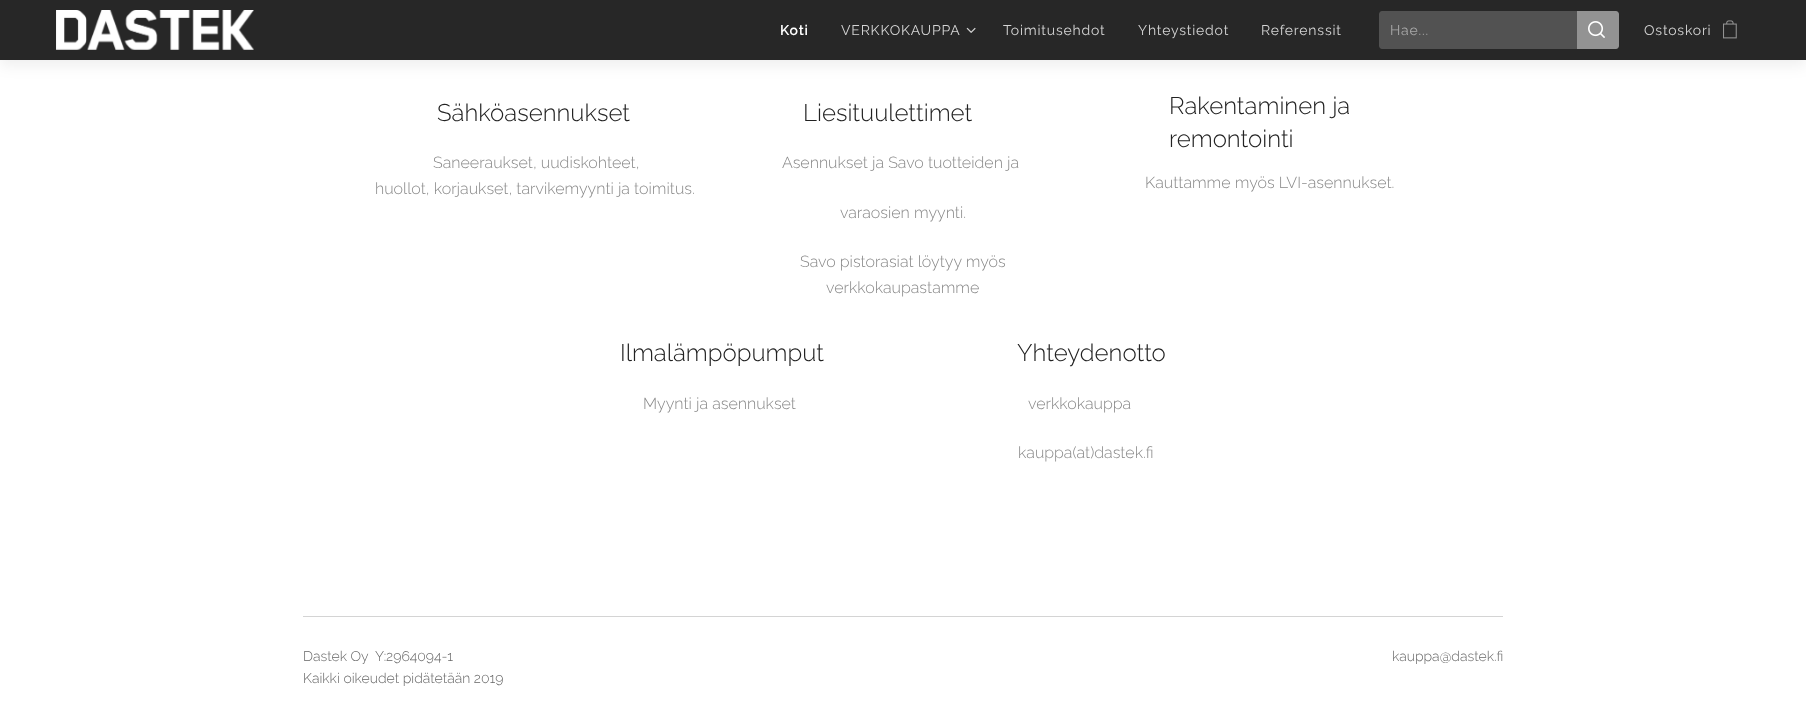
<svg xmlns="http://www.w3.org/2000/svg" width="1806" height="720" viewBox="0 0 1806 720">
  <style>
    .t1 { font: 600 14px Raleway; letter-spacing: 0.8px; fill: #fff; }
    .t2 { font: 14px Raleway; letter-spacing: 0.8px; fill: #d4d4d4; }
    .t3 { font: 14px Raleway; letter-spacing: 0.8px; fill: #a9a9a9; }
    .t4 { font: 300 24px Raleway; fill: #222; }
    .t5 { font: 300 16px Raleway; fill: #888; }
    .t6 { font: 300 14px Raleway; fill: #666; }
  </style>
  <rect width="100%" height="100%" fill="#fff"/>
  <rect x="0" y="5" width="1806" height="60" fill="#00000012" filter="blur(7.5px)"/>
  <rect x="0" y="0" width="1806" height="60" fill="#272727"/>
  <image x="56" y="10" width="198" height="40" href="images/1.png"/>
  <text x="780" y="35" class="t1">Koti</text>
  <text x="841" y="35" class="t2">VERKKOKAUPPA</text>
  <image x="966" y="27" width="10" height="6" href="images/2.png"/>
  <text x="1003" y="35" class="t2">Toimitusehdot</text>
  <text x="1138" y="35" class="t2">Yhteystiedot</text>
  <text x="1261" y="35" class="t2">Referenssit</text>
  <path d="M1382 11H1577V49H1382C1380.5 49 1379 47.5 1379 46V14C1379 12.5 1380.5 11 1382 11Z" fill="#525252"/>
  <text x="1390" y="35" class="t3">Hae...</text>
  <path d="M1577 11H1616C1617.5 11 1619 12.5 1619 14V46C1619 47.5 1617.5 49 1616 49H1577Z" fill="#939393"/>
  <image x="1588" y="21" width="17" height="17" href="images/3.png"/>
  <text x="1644" y="35" class="t2">Ostoskori</text>
  <image x="1723" y="20" width="14" height="19" href="images/4.png"/>
  <text x="437" y="121" class="t4">Sähköasennukset</text>
  <text x="433" y="168" class="t5">Saneeraukset, uudiskohteet,</text>
  <text x="375" y="194" class="t5">huollot, korjaukset, tarvikemyynti ja toimitus.</text>
  <text x="803" y="121" class="t4">Liesituulettimet</text>
  <text x="782" y="168" class="t5">Asennukset ja Savo tuotteiden ja</text>
  <text x="840" y="218" class="t5">varaosien myynti.</text>
  <text x="800" y="267" class="t5">Savo pistorasiat löytyy myös</text>
  <text x="826" y="293" class="t5">verkkokaupastamme</text>
  <text x="1169" y="114" class="t4">Rakentaminen ja</text>
  <text x="1169" y="147" class="t4">remontointi</text>
  <text x="1145" y="188" class="t5">Kauttamme myös LVI-asennukset.</text>
  <text x="620" y="361" class="t4">Ilmalämpöpumput</text>
  <text x="643" y="409" class="t5">Myynti ja asennukset</text>
  <text x="1017" y="361" class="t4">Yhteydenotto</text>
  <text x="1028" y="409" class="t5">verkkokauppa</text>
  <text x="1018" y="458" class="t5">kauppa(at)dastek.fi</text>
  <rect x="303" y="616" width="1200" height="1" fill="#d4d4d4"/>
  <text x="303" y="661" class="t6" xml:space="preserve">Dastek Oy  Y:2964094-1</text>
  <text x="303" y="683" class="t6">Kaikki oikeudet pidätetään 2019</text>
  <text x="1392" y="661" class="t6">kauppa@dastek.fi</text>
</svg>
